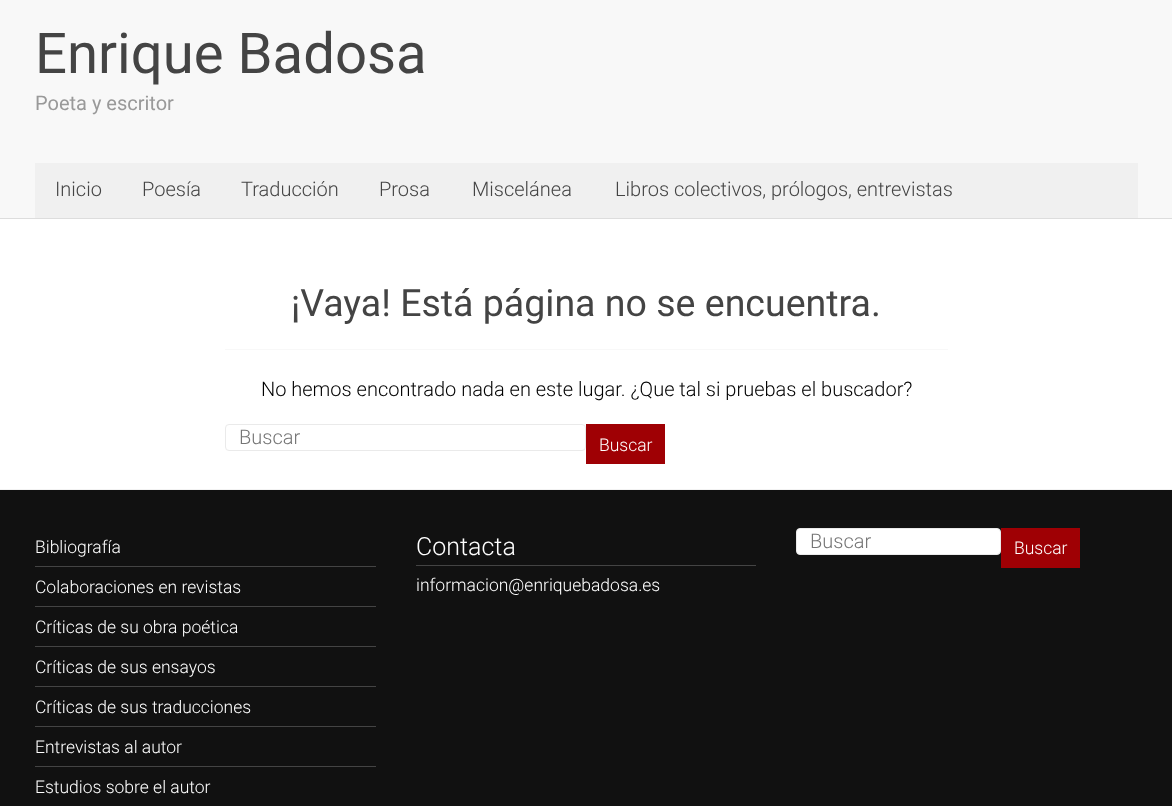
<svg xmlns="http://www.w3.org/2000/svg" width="1172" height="806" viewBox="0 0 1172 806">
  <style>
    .t1 { font: 56.25px Roboto; fill: #444; }
    .t2 { font: 20px Roboto; fill: #999; }
    .t3 { font: 300 20px Roboto; fill: #444; }
    .t4 { font: 37.5px Roboto; fill: #444; }
    .t5 { font: 300 20px Roboto; fill: #000; }
    .t6 { font: 300 20px Roboto; fill: #757575; }
    .t7 { font: 300 17.5px Roboto; fill: #fff; }
    .t8 { font: 300 25px Roboto; fill: #fff; }
  </style>
  <rect width="100%" height="100%" fill="#fff"/>
  <rect x="0" y="0" width="1172" height="218" fill="#f8f8f8"/>
  <rect x="0" y="218" width="1172" height="1" fill="#ddd"/>
  <text x="35" y="73" class="t1">Enrique Badosa</text>
  <text x="35" y="110" class="t2">Poeta y escritor</text>
  <rect x="35" y="163" width="1103" height="55" fill="#f0f0f0"/>
  <text x="55" y="196" class="t3">Inicio</text>
  <text x="142" y="196" class="t3">Poesía</text>
  <text x="241" y="196" class="t3">Traducción</text>
  <text x="379" y="196" class="t3">Prosa</text>
  <text x="472" y="196" class="t3">Miscelánea</text>
  <text x="615" y="196" class="t3">Libros colectivos, prólogos, entrevistas</text>
  <rect x="225" y="349" width="723" height="1" fill="#f8f8f8"/>
  <text x="291" y="316" class="t4">¡Vaya! Está página no se encuentra.</text>
  <text x="261" y="396" class="t5">No hemos encontrado nada en este lugar. ¿Que tal si pruebas el buscador?</text>
  <rect x="225.5" y="424.5" width="360" height="26" rx="3.5" fill="none" stroke="#eaeaea"/>
  <text x="239" y="444" class="t6">Buscar</text>
  <rect x="586" y="424" width="79" height="40" fill="#9f0004"/>
  <text x="599" y="451" class="t7">Buscar</text>
  <rect x="0" y="490" width="1172" height="316" fill="#111"/>
  <rect x="0" y="489" width="1172" height="1" fill="#f2f2f2"/>
  <rect x="35" y="566" width="341" height="1" fill="#444"/>
  <text x="35" y="553" class="t7">Bibliografía</text>
  <rect x="35" y="606" width="341" height="1" fill="#444"/>
  <text x="35" y="593" class="t7">Colaboraciones en revistas</text>
  <rect x="35" y="646" width="341" height="1" fill="#444"/>
  <text x="35" y="633" class="t7">Críticas de su obra poética</text>
  <rect x="35" y="686" width="341" height="1" fill="#444"/>
  <text x="35" y="673" class="t7">Críticas de sus ensayos</text>
  <rect x="35" y="726" width="341" height="1" fill="#444"/>
  <text x="35" y="713" class="t7">Críticas de sus traducciones</text>
  <rect x="35" y="766" width="341" height="1" fill="#444"/>
  <text x="35" y="753" class="t7">Entrevistas al autor</text>
  <text x="35" y="793" class="t7">Estudios sobre el autor</text>
  <rect x="416" y="565" width="340" height="1" fill="#444"/>
  <text x="416" y="555" class="t8">Contacta</text>
  <text x="416" y="591" class="t7">informacion@enriquebadosa.es</text>
  <rect x="796.5" y="528.5" width="204" height="26" rx="3.5" fill="#fff" stroke="#eaeaea"/>
  <text x="810" y="548" class="t6">Buscar</text>
  <rect x="1001" y="528" width="79" height="40" fill="#9f0004"/>
  <text x="1014" y="554" class="t7">Buscar</text>
</svg>
